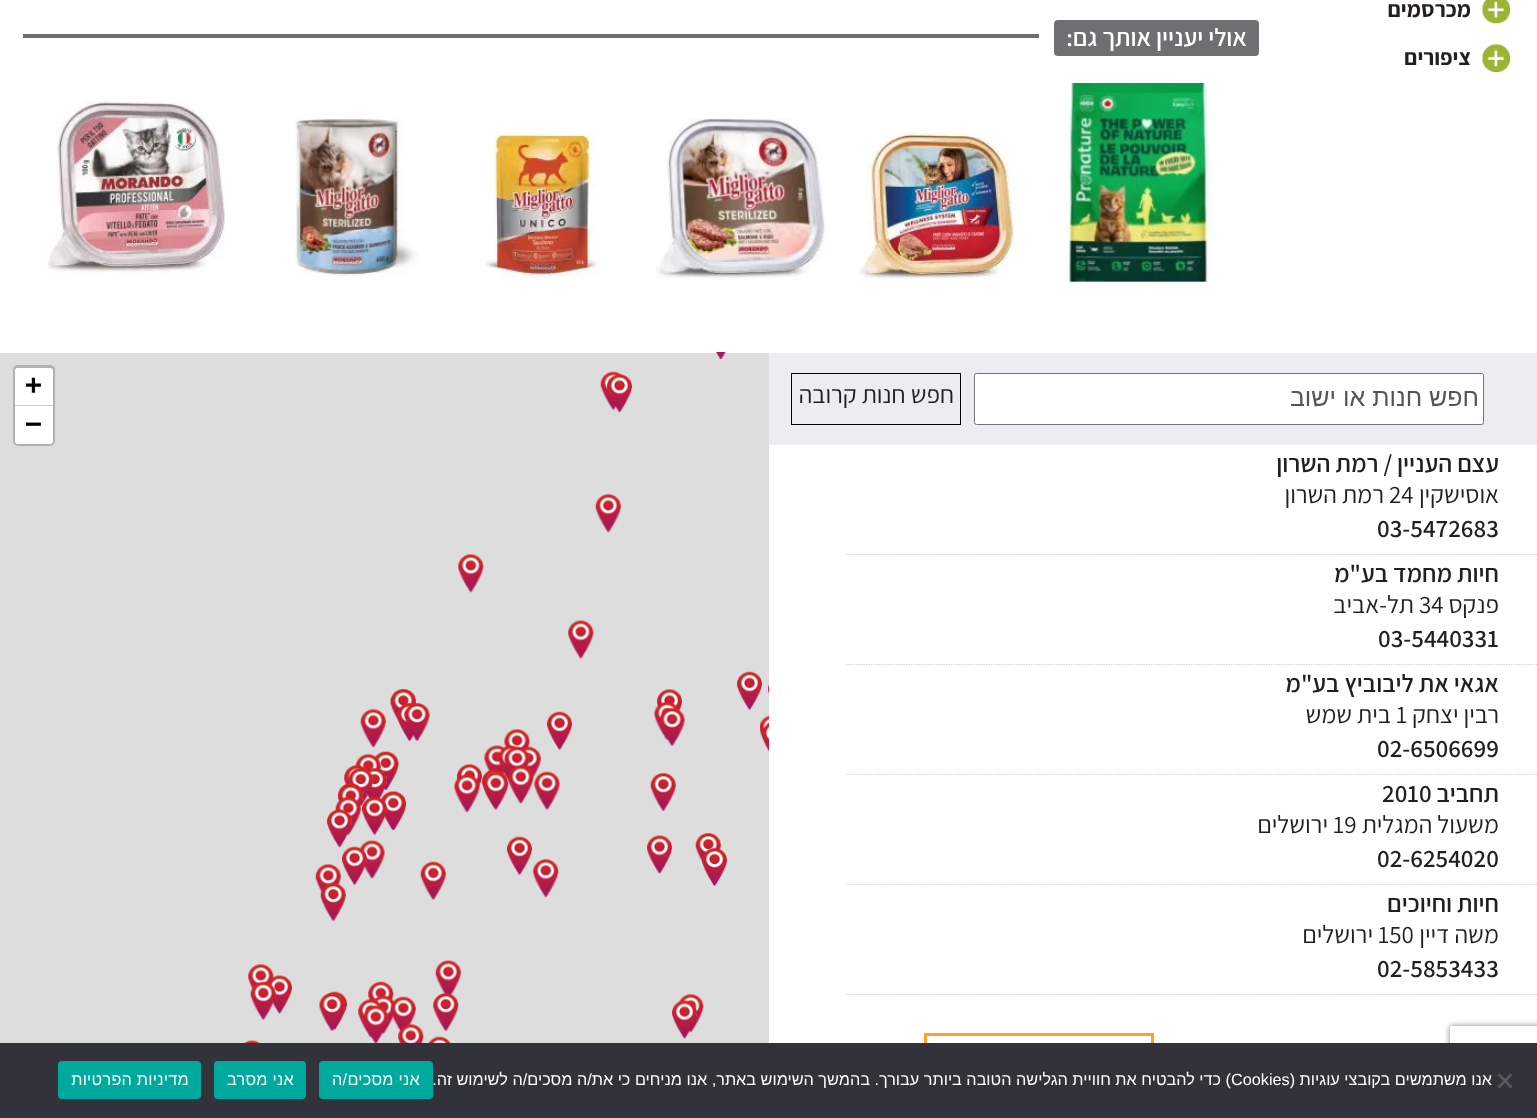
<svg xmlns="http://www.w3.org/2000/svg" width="1537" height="1118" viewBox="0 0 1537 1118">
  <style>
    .t1 { font: bold 22.5px Assistant; direction: rtl; fill: #231f20; }
    .t2 { font: 600 25px Assistant; direction: rtl; fill: #fff; }
    .t3 { font: 25px Liberation Sans; direction: rtl; fill: #555; }
    .t4 { font: 25px Assistant; direction: rtl; fill: #231f20; }
    .t5 { font: 600 25px Assistant; direction: rtl; fill: #231f20; }
    .t6 { font: 25px Assistant; fill: #231f20; }
    .t7 { font: 600 25px Assistant; fill: #231f20; }
    .t8 { font: bold 28px DejaVu Sans Mono; fill: #000; }
    .t9 { font: 16.25px Liberation Sans; direction: rtl; fill: #fff; }
    .t10 { font: 16.25px Liberation Sans; fill: #fff; }
    .t11 { font: 16.25px Liberation Sans; letter-spacing: 0.25px; direction: rtl; fill: #fff; }
  </style>
  <defs>
    <clipPath id="clip1"><rect x="23" y="0" width="1238" height="353"/></clipPath>
    <clipPath id="clip2"><path d="M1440 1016H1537V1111H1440ZM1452.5 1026H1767.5C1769 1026 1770 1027 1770 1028.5V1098.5C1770 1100 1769 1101 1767.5 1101H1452.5C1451 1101 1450 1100 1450 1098.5V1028.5C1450 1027 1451 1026 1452.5 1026Z" clip-rule="evenodd"/></clipPath>
  </defs>
  <rect width="100%" height="100%" fill="#fff"/>
  <image x="1482" y="0" width="28" height="24" href="images/1.png"/>
  <text x="1471" y="17" class="t1">מכרסמים</text>
  <image x="1482" y="44" width="28" height="28" href="images/2.png"/>
  <text x="1471" y="65" class="t1">ציפורים</text>
  <g clip-path="url(#clip1)">
    <rect x="1046.5" y="12.5" width="220" height="51" rx="11.5" fill="#6d6f71" stroke="#fff" stroke-width="15"/>
  </g>
  <text x="1247" y="46" class="t2">אולי יעניין אותך גם:</text>
  <rect x="23" y="34" width="1016" height="4" fill="#6d6f71"/>
  <image x="1065" y="83" width="149" height="199" href="images/3.png"/>
  <image x="859" y="131" width="159" height="148" href="images/4.png"/>
  <image x="656" y="118" width="171" height="162" href="images/5.png"/>
  <image x="484" y="131" width="117" height="146" href="images/6.png"/>
  <image x="294" y="118" width="125" height="159" href="images/7.png"/>
  <image x="47" y="101" width="178" height="172" href="images/8.png"/>
  <rect x="769" y="353" width="768" height="92" fill="#ecedf1"/>
  <rect x="974.5" y="373.5" width="509" height="51" rx="2" fill="#fff" stroke="#767676"/>
  <text x="1479" y="406" class="t3">חפש חנות או ישוב</text>
  <rect x="791.5" y="373.5" width="169" height="51" fill="none" stroke="#000"/>
  <text x="954" y="403" class="t4">חפש חנות קרובה</text>
  <path d="M846 554.5H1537.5" fill="none" stroke="#ccc" stroke-width="1.2" stroke-dasharray="1.25 1.25"/>
  <text x="1499" y="472" class="t5">עצם העניין / רמת השרון</text>
  <text x="1499" y="503" class="t4">אוסישקין</text>
  <text x="1389" y="503" class="t6">24</text>
  <text x="1384" y="503" class="t4">רמת השרון</text>
  <text x="1377" y="537" class="t7">03-5472683</text>
  <path d="M846 664.5H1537.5" fill="none" stroke="#ccc" stroke-width="1.2" stroke-dasharray="1.25 1.25"/>
  <text x="1499" y="582" class="t5">חיות מחמד בע"מ</text>
  <text x="1499" y="613" class="t4">פנקס</text>
  <text x="1419" y="613" class="t6">34</text>
  <text x="1414" y="613" class="t4">תל-אביב</text>
  <text x="1378" y="647" class="t7">03-5440331</text>
  <path d="M846 774.5H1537.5" fill="none" stroke="#ccc" stroke-width="1.2" stroke-dasharray="1.25 1.25"/>
  <text x="1499" y="692" class="t5">אגאי את ליבוביץ בע"מ</text>
  <text x="1499" y="723" class="t4">רבין יצחק</text>
  <text x="1396" y="723" class="t6">1</text>
  <text x="1391" y="723" class="t4">בית שמש</text>
  <text x="1377" y="757" class="t7">02-6506699</text>
  <path d="M846 884.5H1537.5" fill="none" stroke="#ccc" stroke-width="1.2" stroke-dasharray="1.25 1.25"/>
  <text x="1499" y="802" class="t5">תחביב</text>
  <text x="1382" y="802" class="t7">2010</text>
  <text x="1499" y="833" class="t4">משעול המגלית</text>
  <text x="1333" y="833" class="t6">19</text>
  <text x="1328" y="833" class="t4">ירושלים</text>
  <text x="1377" y="867" class="t7">02-6254020</text>
  <path d="M846 994.5H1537.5" fill="none" stroke="#ccc" stroke-width="1.2" stroke-dasharray="1.25 1.25"/>
  <text x="1499" y="912" class="t5">חיות וחיוכים</text>
  <text x="1499" y="943" class="t4">משה דיין</text>
  <text x="1378" y="943" class="t6">150</text>
  <text x="1373" y="943" class="t4">ירושלים</text>
  <text x="1377" y="977" class="t7">02-5853433</text>
  <rect x="925.5" y="1034.5" width="227" height="64" fill="none" stroke="#f7a429" stroke-width="3"/>
  <rect x="0" y="353" width="769" height="690" fill="#ddd"/>
  <image x="716" y="352" width="10" height="7" href="images/9.png"/>
  <image x="716" y="352" width="10" height="7" href="images/10.png"/>
  <image x="600" y="371" width="25" height="39" href="images/11.png"/>
  <image x="607" y="374" width="25" height="39" href="images/12.png"/>
  <image x="595" y="494" width="26" height="39" href="images/13.png"/>
  <image x="458" y="554" width="26" height="39" href="images/14.png"/>
  <image x="568" y="620" width="26" height="39" href="images/15.png"/>
  <image x="768" y="684" width="1" height="10" href="images/16.png"/>
  <image x="737" y="671" width="25" height="39" href="images/17.png"/>
  <image x="390" y="689" width="26" height="39" href="images/13.png"/>
  <image x="657" y="689" width="25" height="23" href="images/18.png"/>
  <image x="390" y="689" width="26" height="39" href="images/19.png"/>
  <image x="654" y="701" width="26" height="39" href="images/20.png"/>
  <image x="397" y="703" width="19" height="38" href="images/21.png"/>
  <image x="760" y="715" width="9" height="36" href="images/22.png"/>
  <image x="659" y="708" width="26" height="38" href="images/23.png"/>
  <image x="547" y="711" width="25" height="39" href="images/17.png"/>
  <image x="404" y="703" width="26" height="38" href="images/24.png"/>
  <image x="360" y="709" width="26" height="39" href="images/13.png"/>
  <image x="762" y="722" width="7" height="30" href="images/25.png"/>
  <image x="504" y="729" width="26" height="21" href="images/26.png"/>
  <image x="484" y="745" width="22" height="30" href="images/28.png"/>
  <image x="498" y="745" width="23" height="39" href="images/27.png"/>
  <image x="520" y="746" width="21" height="38" href="images/29.png"/>
  <image x="504" y="746" width="26" height="29" href="images/30.png"/>
  <image x="374" y="751" width="25" height="39" href="images/31.png"/>
  <image x="457" y="764" width="25" height="29" href="images/32.png"/>
  <image x="374" y="751" width="25" height="39" href="images/33.png"/>
  <image x="355" y="754" width="26" height="39" href="images/34.png"/>
  <image x="344" y="765" width="25" height="21" href="images/35.png"/>
  <image x="508" y="765" width="26" height="39" href="images/36.png"/>
  <image x="344" y="765" width="25" height="21" href="images/37.png"/>
  <image x="534" y="771" width="26" height="39" href="images/38.png"/>
  <image x="482" y="769" width="25" height="39" href="images/39.png"/>
  <image x="366" y="768" width="21" height="31" href="images/40.png"/>
  <image x="348" y="768" width="26" height="38" href="images/41.png"/>
  <image x="650" y="773" width="26" height="38" href="images/42.png"/>
  <image x="483" y="772" width="26" height="38" href="images/43.png"/>
  <image x="454" y="774" width="26" height="39" href="images/44.png"/>
  <image x="338" y="783" width="26" height="26" href="images/45.png"/>
  <image x="381" y="791" width="25" height="39" href="images/46.png"/>
  <image x="338" y="785" width="26" height="26" href="images/47.png"/>
  <image x="381" y="791" width="25" height="39" href="images/48.png"/>
  <image x="381" y="791" width="25" height="39" href="images/49.png"/>
  <image x="362" y="796" width="25" height="39" href="images/50.png"/>
  <image x="335" y="796" width="26" height="39" href="images/51.png"/>
  <image x="695" y="833" width="26" height="37" href="images/52.png"/>
  <image x="647" y="835" width="25" height="39" href="images/53.png"/>
  <image x="507" y="836" width="25" height="39" href="images/17.png"/>
  <image x="359" y="840" width="26" height="39" href="images/54.png"/>
  <image x="327" y="809" width="25" height="39" href="images/56.png"/>
  <image x="342" y="846" width="25" height="39" href="images/55.png"/>
  <image x="702" y="848" width="25" height="38" href="images/57.png"/>
  <image x="533" y="859" width="26" height="39" href="images/14.png"/>
  <image x="420" y="861" width="26" height="39" href="images/58.png"/>
  <image x="315" y="864" width="26" height="30" href="images/59.png"/>
  <image x="320" y="883" width="26" height="38" href="images/60.png"/>
  <image x="435" y="960" width="26" height="36" href="images/61.png"/>
  <image x="248" y="964" width="26" height="27" href="images/63.png"/>
  <image x="267" y="975" width="25" height="39" href="images/62.png"/>
  <image x="368" y="981" width="26" height="21" href="images/64.png"/>
  <image x="322" y="991" width="25" height="39" href="images/17.png"/>
  <image x="250" y="981" width="26" height="39" href="images/65.png"/>
  <image x="678" y="994" width="26" height="39" href="images/14.png"/>
  <image x="433" y="993" width="26" height="38" href="images/66.png"/>
  <image x="372" y="995" width="23" height="39" href="images/68.png"/>
  <image x="390" y="996" width="26" height="37" href="images/67.png"/>
  <image x="319" y="993" width="26" height="38" href="images/69.png"/>
  <image x="672" y="1000" width="25" height="39" href="images/70.png"/>
  <image x="358" y="999" width="26" height="39" href="images/71.png"/>
  <image x="428" y="1036" width="23" height="7" href="images/72.png"/>
  <image x="398" y="1024" width="26" height="19" href="images/73.png"/>
  <image x="363" y="1005" width="26" height="38" href="images/74.png"/>
  <image x="243" y="1040" width="18" height="3" href="images/75.png"/>
  <rect x="14.5" y="366.5" width="39" height="78" rx="3.5" fill="none" stroke="#b1b1b1" stroke-width="3"/>
  <path d="M17.5 368H50.5C52 368 53 369 53 370.5V406H15V370.5C15 369 16 368 17.5 368Z" fill="#fff"/>
  <rect x="15" y="405" width="38" height="1" fill="#ccc"/>
  <text x="25" y="394" class="t8">+</text>
  <path d="M15 406H53V441.5C53 443 52 444 50.5 444H17.5C16 444 15 443 15 441.5Z" fill="#fff"/>
  <text x="25" y="433" class="t8">−</text>
  <g clip-path="url(#clip2)">
    <rect x="1450" y="1026" width="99" height="75" rx="2.5" fill="#808080" filter="blur(3px)"/>
  </g>
  <rect x="0" y="1043" width="1537" height="75" fill="#32323a"/>
  <path d="M1510.5 1073.5L1512.5 1075L1499.5 1088.5L1497.5 1086.5Z" fill="#59595d"/>
  <path d="M1497.5 1075L1499.5 1073.5L1512.5 1086.5L1510.5 1088.5Z" fill="#59595d"/>
  <text x="1492" y="1085" class="t9">אנו משתמשים בקובצי עוגיות (</text>
  <text x="1231" y="1085" class="t10">Cookies</text>
  <text x="1231" y="1085" class="t9">) כדי להבטיח את חוויית הגלישה הטובה ביותר עבורך. בהמשך השימוש באתר, אנו מניחים כי את/ה מסכים/ה לשימוש זה.</text>
  <rect x="319" y="1061" width="114" height="38" rx="4" fill="#00a99d"/>
  <text x="420" y="1085" class="t11">אני מסכים/ה</text>
  <rect x="214" y="1061" width="92" height="38" rx="4" fill="#00a99d"/>
  <text x="294" y="1085" class="t11">אני מסרב</text>
  <rect x="58" y="1061" width="143" height="38" rx="4" fill="#00a99d"/>
  <text x="189" y="1085" class="t11">מדיניות הפרטיות</text>
</svg>
